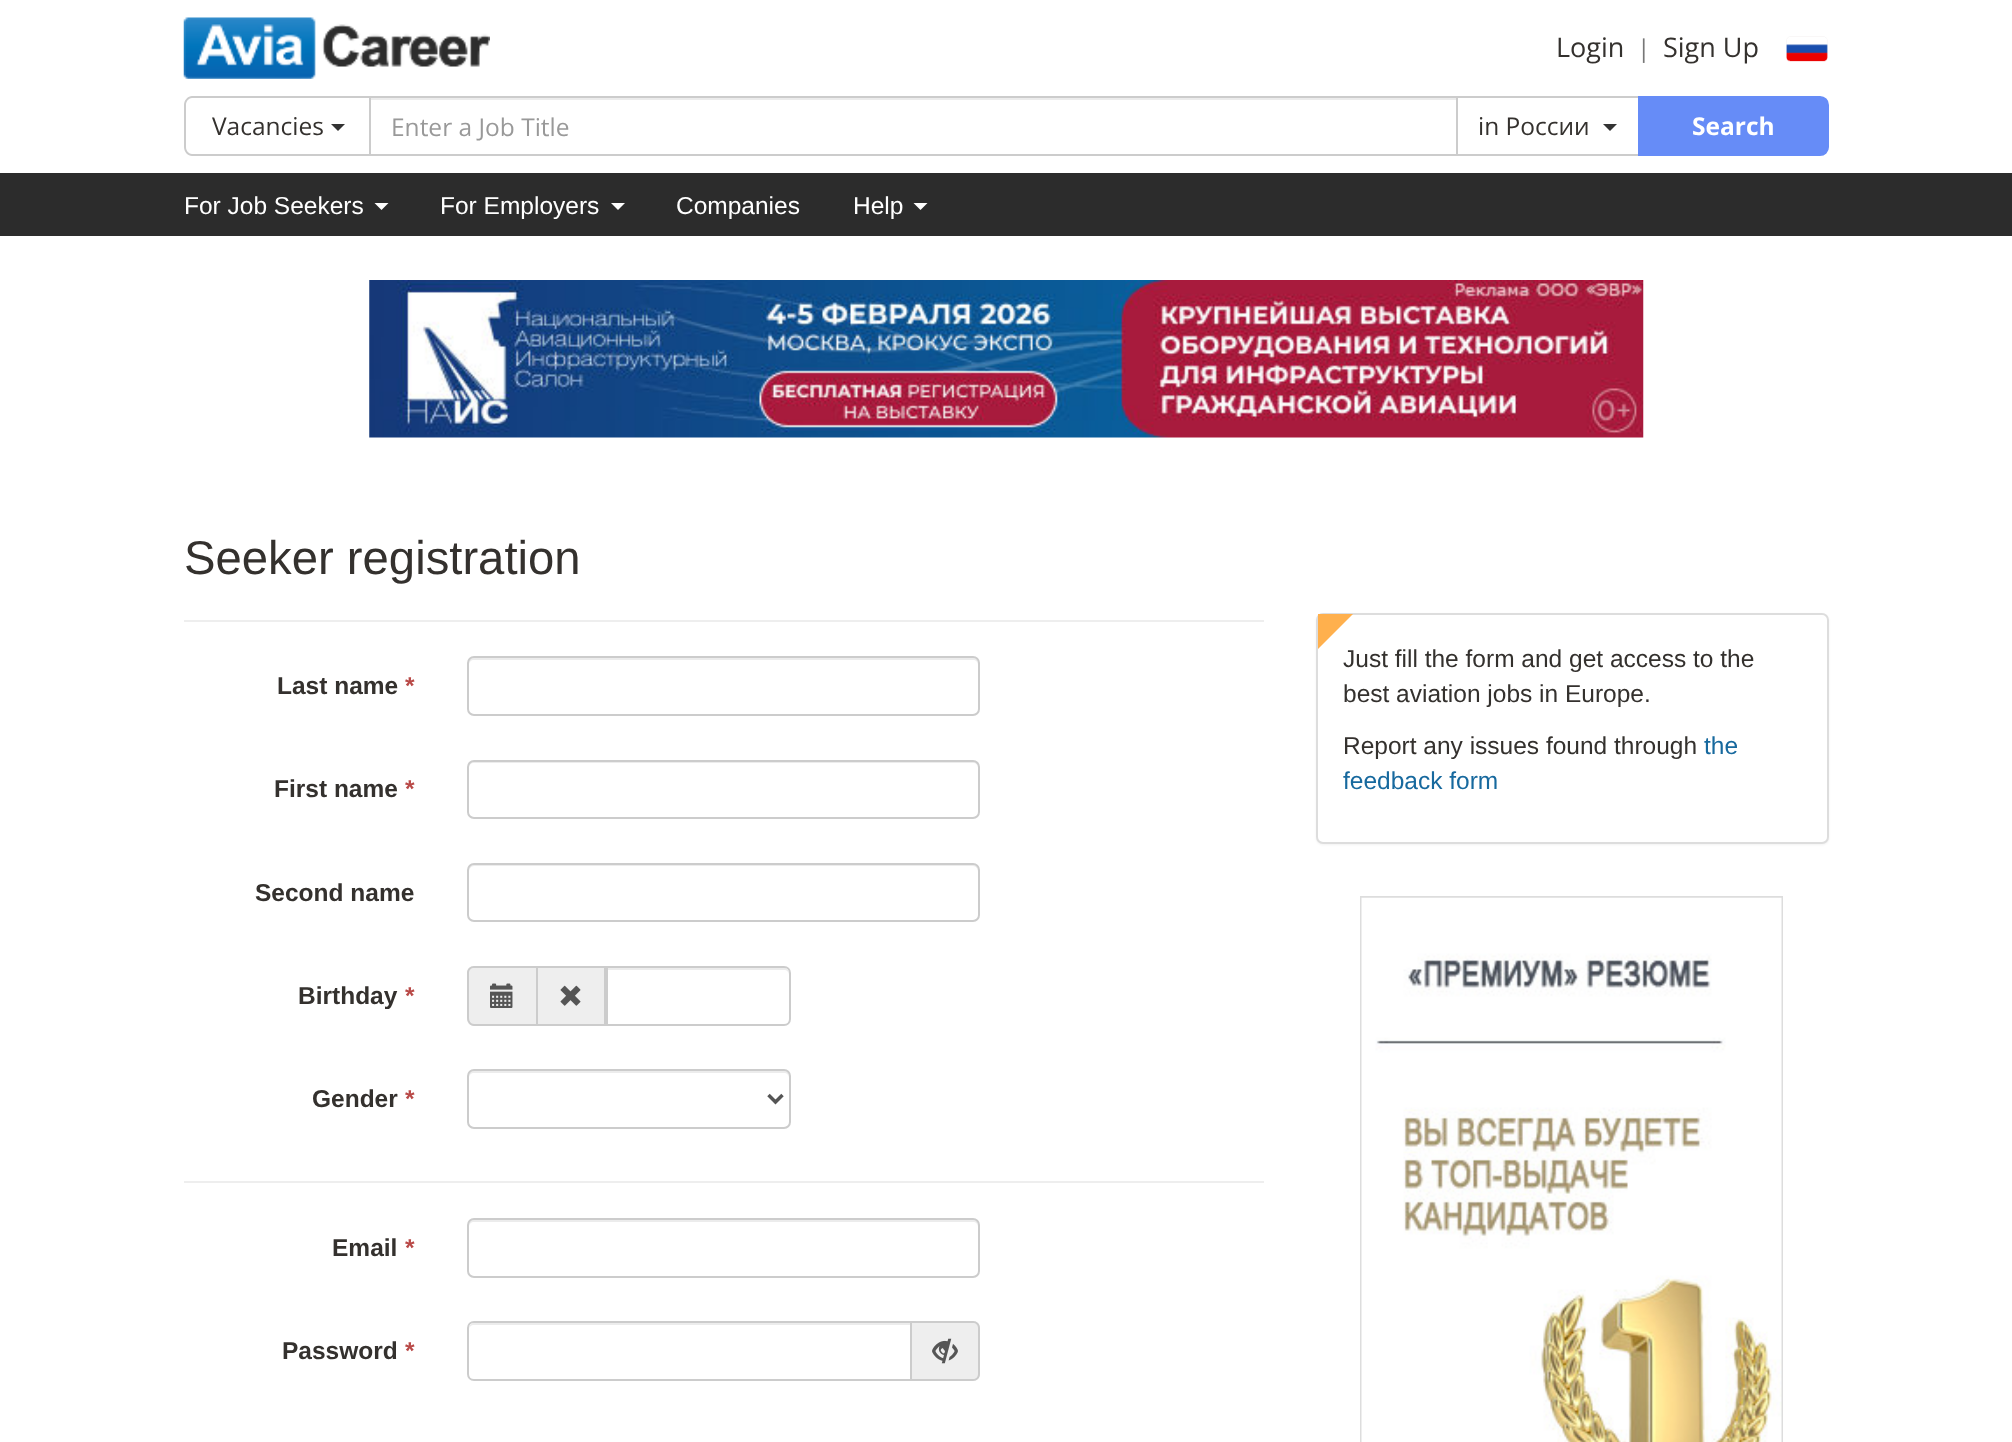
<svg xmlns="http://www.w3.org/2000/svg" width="2012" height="1442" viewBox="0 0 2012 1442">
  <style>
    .t1 { font: 27px Open Sans; fill: #34312e; }
    .t2 { font: 24.5px Open Sans; fill: #777; }
    .t3 { font: 24.5px Open Sans; fill: #34312e; }
    .t4 { font: 24.5px Open Sans; fill: #999; }
    .t5 { font: bold 24.5px Open Sans; fill: #fff; }
    .t6 { font: 24.5px Liberation Sans; fill: #fff; }
    .t7 { font: 47.25px Liberation Sans; fill: #34312e; }
    .t8 { font: bold 24.5px Liberation Sans; fill: #34312e; }
    .t9 { font: bold 24.5px Liberation Sans; fill: #b94a48; }
    .t10 { font: 24.5px Liberation Sans; fill: #34312e; }
    .t11 { font: 24.5px Liberation Sans; fill: #17699e; }
  </style>
  <rect width="100%" height="100%" fill="#fff"/>
  <image x="183" y="17" width="307" height="62" href="images/1.png"/>
  <text x="1556" y="57" class="t1">Login</text>
  <text x="1637" y="57" class="t2">|</text>
  <text x="1663" y="57" class="t1">Sign Up</text>
  <image x="1786" y="36" width="42" height="26" href="images/2.png"/>
  <path d="M192 96H371V156H192C188 156 184 152 184 147V105C184 100 188 96 192 96ZM192 98H371V154H192C189 154 186 151 186 147V105C186 101 189 98 192 98Z" fill="#ccc" fill-rule="evenodd"/>
  <text x="212" y="135" class="t3">Vacancies</text>
  <path d="M331 124H345L338 131Z" fill="#333"/>
  <rect x="371" y="98" width="1085" height="2" fill="#ececec"/>
  <rect x="370" y="97" width="1087" height="58" fill="none" stroke="#ccc" stroke-width="2"/>
  <text x="391" y="136" class="t4">Enter a Job Title</text>
  <rect x="1457" y="97" width="182" height="58" fill="none" stroke="#ccc" stroke-width="2"/>
  <text x="1478" y="135" class="t3">in России</text>
  <path d="M1603 124H1617L1610 131Z" fill="#333"/>
  <path d="M1639 97H1820C1824.5 97 1828 100.5 1828 105V147C1828 151.5 1824.5 155 1820 155H1639Z" fill="#668cf7" stroke="#668cf7" stroke-width="2"/>
  <text x="1692" y="135" class="t5">Search</text>
  <rect x="0" y="173" width="2012" height="63" fill="#2c2c2c"/>
  <text x="184" y="214" class="t6">For Job Seekers</text>
  <path d="M374.5 203H388.5L381.5 210Z" fill="#fff"/>
  <text x="440" y="214" class="t6">For Employers</text>
  <path d="M611 203H625L618 210Z" fill="#fff"/>
  <text x="676" y="214" class="t6">Companies</text>
  <text x="853" y="214" class="t6">Help</text>
  <path d="M913.5 203H927.5L920.5 210Z" fill="#fff"/>
  <image x="369" y="280" width="1275" height="158" href="images/3.png"/>
  <rect x="184" y="620" width="1080" height="2" fill="#eee"/>
  <text x="184" y="574" class="t7">Seeker registration</text>
  <text x="277" y="694" class="t8">Last name</text>
  <text x="405" y="694" class="t9">*</text>
  <path d="M474 660H973C976 660 978 662 978 665V663C978 660 976 658 973 658H474C471 658 469 660 469 663V665C469 662 471 660 474 660Z" fill="#ececec"/>
  <rect x="468" y="657" width="511" height="58" rx="6" fill="none" stroke="#ccc" stroke-width="2"/>
  <text x="274" y="797" class="t8">First name</text>
  <text x="405" y="797" class="t9">*</text>
  <path d="M474 763H973C976 763 978 765 978 768V766C978 763 976 761 973 761H474C471 761 469 763 469 766V768C469 765 471 763 474 763Z" fill="#ececec"/>
  <rect x="468" y="761" width="511" height="57" rx="6" fill="none" stroke="#ccc" stroke-width="2"/>
  <text x="255" y="901" class="t8">Second name</text>
  <path d="M474 866H973C976 866 978 869 978 872V870C978 867 976 865 973 865H474C471 865 469 867 469 870V872C469 869 471 866 474 866Z" fill="#ececec"/>
  <rect x="468" y="864" width="511" height="57" rx="6" fill="none" stroke="#ccc" stroke-width="2"/>
  <text x="298" y="1004" class="t8">Birthday</text>
  <text x="405" y="1004" class="t9">*</text>
  <path d="M474 966H536V1026H474C470 1026 467 1023 467 1019V973C467 969 470 966 474 966Z" fill="#eee"/>
  <path d="M474 966H536V1026H474C470 1026 467 1022 467 1018V973C467 969 470 966 474 966ZM474 968H536V1024H474C471 1024 469 1021 469 1018V973C469 970 471 968 474 968Z" fill="#ccc" fill-rule="evenodd"/>
  <image x="490" y="983" width="23" height="25" href="images/4.png"/>
  <rect x="537" y="967" width="68" height="58" fill="#eee" stroke="#ccc" stroke-width="2"/>
  <image x="560" y="985" width="21" height="21" href="images/5.png"/>
  <path d="M607 970H784C787 970 789 972 789 975V973C789 970 787 968 784 968H607Z" fill="#ececec"/>
  <path d="M607 967H784C787.5 967 790 969.5 790 973V1019C790 1022.5 787.5 1025 784 1025H607Z" fill="none" stroke="#ccc" stroke-width="2"/>
  <text x="312" y="1107" class="t8">Gender</text>
  <text x="405" y="1107" class="t9">*</text>
  <path d="M474 1073H784C787 1073 789 1075 789 1078V1076C789 1073 787 1071 784 1071H474C471 1071 469 1073 469 1076V1078C469 1075 471 1073 474 1073Z" fill="#ececec"/>
  <rect x="468" y="1070" width="322" height="58" rx="6" fill="none" stroke="#ccc" stroke-width="2"/>
  <path d="M768.5 1095L775.5 1102L782.5 1095" fill="none" stroke="#555" stroke-width="3.5"/>
  <rect x="184" y="1181" width="1080" height="2" fill="#eee"/>
  <text x="332" y="1256" class="t8">Email</text>
  <text x="405" y="1256" class="t9">*</text>
  <path d="M474 1222H973C976 1222 978 1224 978 1227V1225C978 1222 976 1220 973 1220H474C471 1220 469 1222 469 1225V1227C469 1224 471 1222 474 1222Z" fill="#ececec"/>
  <rect x="468" y="1219" width="511" height="58" rx="6" fill="none" stroke="#ccc" stroke-width="2"/>
  <text x="282" y="1359" class="t8">Password</text>
  <text x="405" y="1359" class="t9">*</text>
  <path d="M474 1325H910V1323H474C470 1323 469 1327 469 1330C469 1327 471 1325 474 1325Z" fill="#ececec"/>
  <path d="M474 1322H911V1380H474C470.5 1380 468 1377.5 468 1374V1328C468 1324.5 470.5 1322 474 1322Z" fill="none" stroke="#ccc" stroke-width="2"/>
  <path d="M912 1321H973C977 1321 980 1324 980 1328V1374C980 1378 977 1381 973 1381H912Z" fill="#eee"/>
  <path d="M912 1321H973C977 1321 980 1324 980 1328V1374C980 1378 977 1381 973 1381H912ZM912 1323H973C976 1323 978 1325 978 1328V1374C978 1377 976 1379 973 1379H912Z" fill="#ccc" fill-rule="evenodd"/>
  <image x="932" y="1338" width="26" height="26" href="images/6.png"/>
  <rect x="1316" y="614" width="513" height="231" rx="7" fill="#0000000d" filter="blur(1px)"/>
  <rect x="1317" y="614" width="511" height="229" rx="6" fill="#fff" stroke="#ddd" stroke-width="2"/>
  <path d="M1318 614H1353L1318 649Z" fill="#ffb04d"/>
  <text x="1343" y="667" class="t10">Just fill the form and get access to the</text>
  <text x="1343" y="702" class="t10">best aviation jobs in Europe.</text>
  <text x="1343" y="754" class="t10">Report any issues found through</text>
  <text x="1704" y="754" class="t11">the</text>
  <text x="1343" y="789" class="t11">feedback form</text>
  <rect x="1361" y="897" width="421" height="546" fill="none" stroke="#ddd" stroke-width="2"/>
  <image x="1361" y="897" width="421" height="545" href="images/7.png"/>
</svg>
